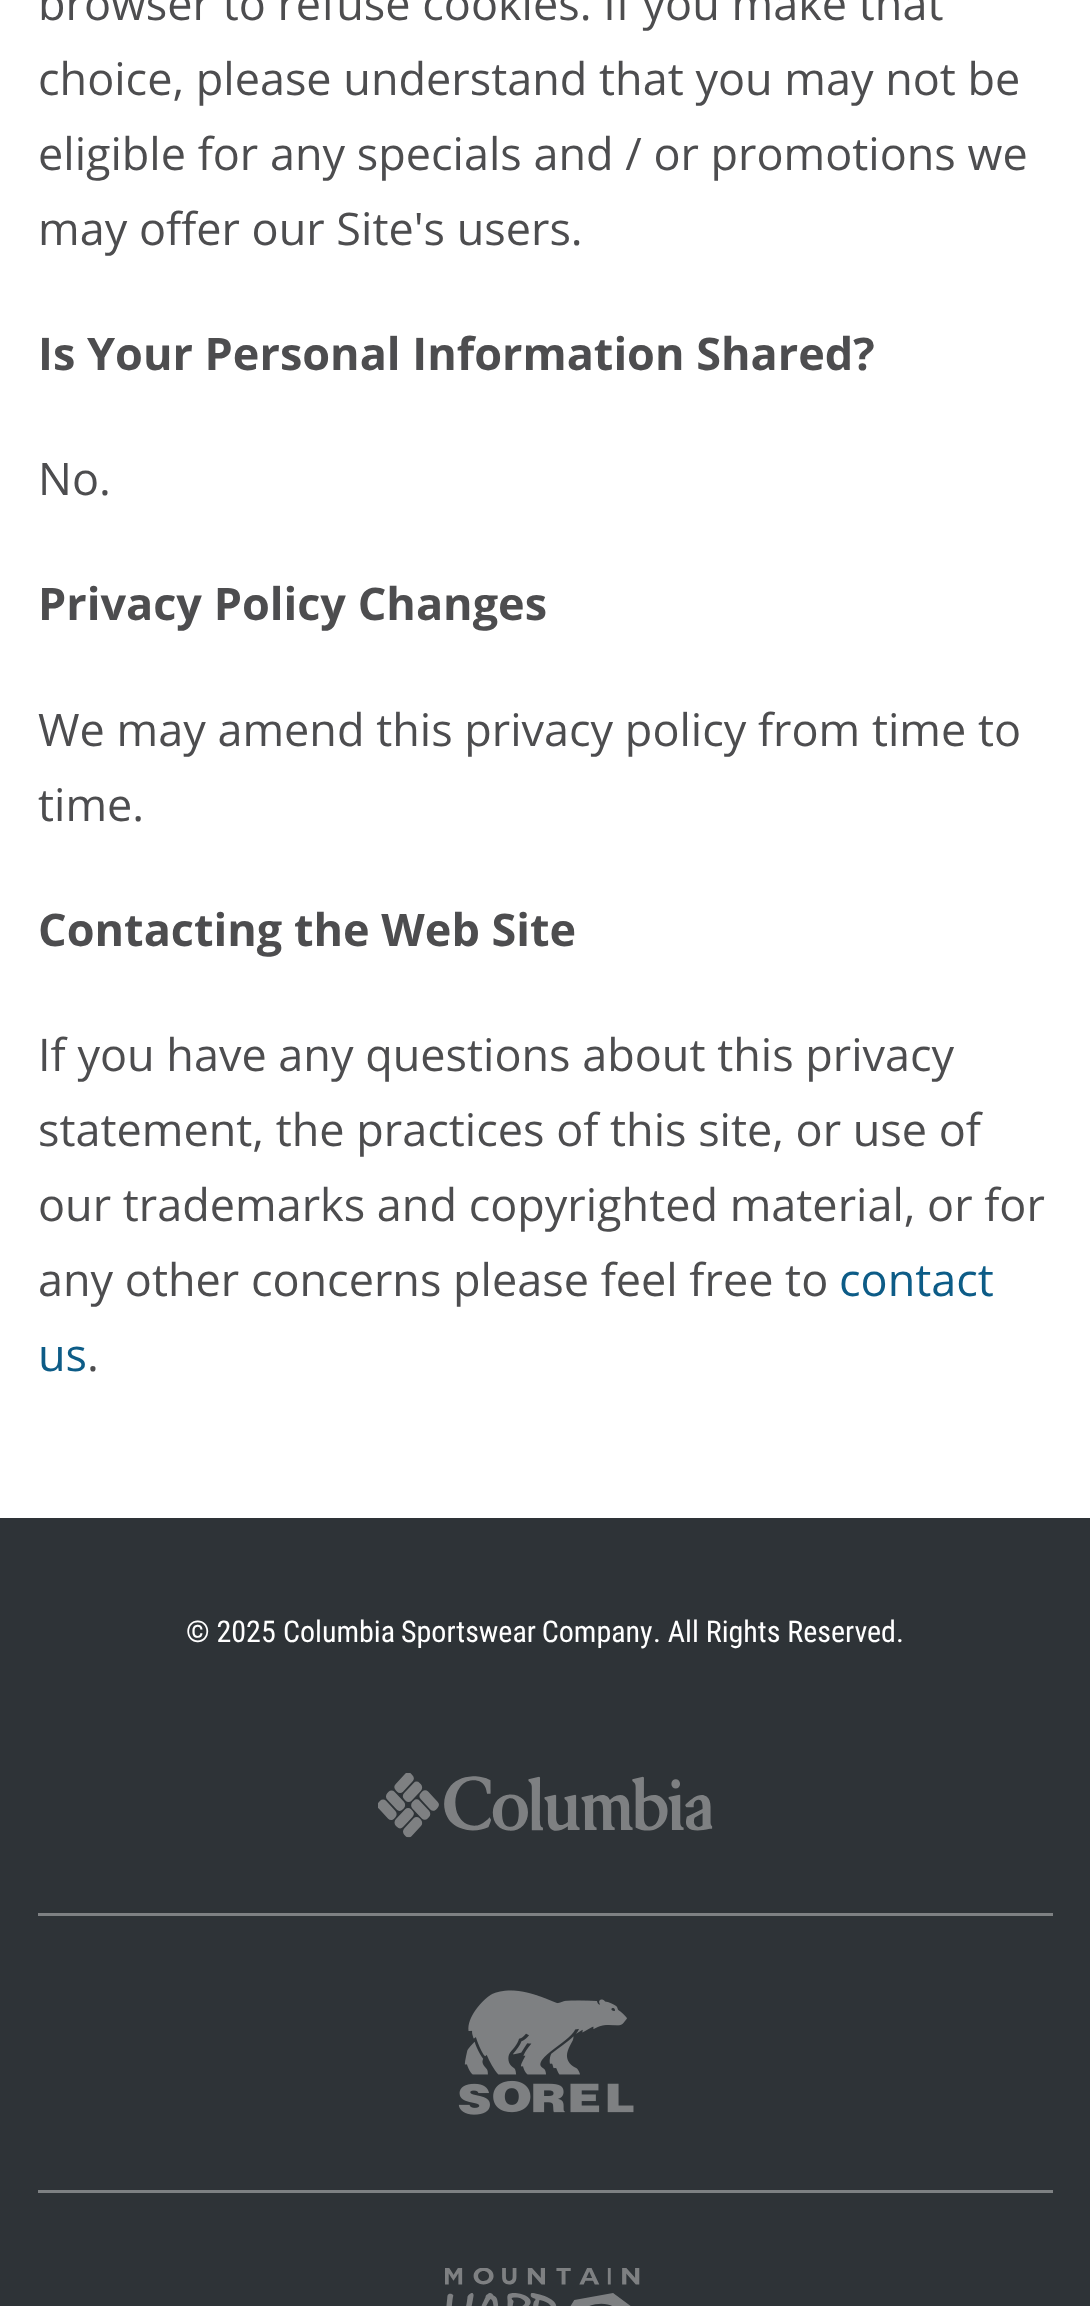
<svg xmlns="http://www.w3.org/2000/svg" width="1090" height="2306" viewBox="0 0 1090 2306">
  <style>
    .t1 { font: 45px Open Sans; fill: #4d4d4f; }
    .t2 { font: bold 45px Open Sans; fill: #4d4d4f; }
    .t3 { font: 45px Open Sans; fill: #0d5c87; }
    .t4 { font: 30px Roboto Condensed; fill: #fff; }
  </style>
  <rect width="100%" height="100%" fill="#fff"/>
  <text x="38" y="20" class="t1">browser to refuse cookies. If you make that</text>
  <text x="38" y="95" class="t1">choice, please understand that you may not be</text>
  <text x="38" y="170" class="t1">eligible for any specials and / or promotions we</text>
  <text x="38" y="245" class="t1">may offer our Site's users.</text>
  <text x="38" y="370" class="t2">Is Your Personal Information Shared?</text>
  <text x="38" y="495" class="t1">No.</text>
  <text x="38" y="620" class="t2">Privacy Policy Changes</text>
  <text x="38" y="746" class="t1">We may amend this privacy policy from time to</text>
  <text x="38" y="821" class="t1">time.</text>
  <text x="38" y="946" class="t2">Contacting the Web Site</text>
  <text x="38" y="1071" class="t1">If you have any questions about this privacy</text>
  <text x="38" y="1146" class="t1">statement, the practices of this site, or use of</text>
  <text x="38" y="1221" class="t1">our trademarks and copyrighted material, or for</text>
  <text x="38" y="1296" class="t1">any other concerns please feel free to</text>
  <text x="839" y="1296" class="t3">contact</text>
  <text x="38" y="1371" class="t3">us</text>
  <text x="87" y="1371" class="t1">.</text>
  <rect x="0" y="1518" width="1090" height="788" fill="#2e3337"/>
  <text x="186" y="1642" class="t4">© 2025</text>
  <text x="283" y="1642" word-spacing="-1" class="t4">Columbia Sportswear Company</text>
  <text x="653" y="1642" class="t4">. All Rights Reserved.</text>
  <image x="378" y="1773" width="335" height="65" href="images/1.png"/>
  <rect x="38" y="1913" width="1015" height="3" fill="#7e8183"/>
  <image x="458" y="1990" width="176" height="125" href="images/2.png"/>
  <rect x="38" y="2190" width="1015" height="3" fill="#7e8183"/>
  <image x="445" y="2268" width="195" height="38" href="images/3.png"/>
</svg>
